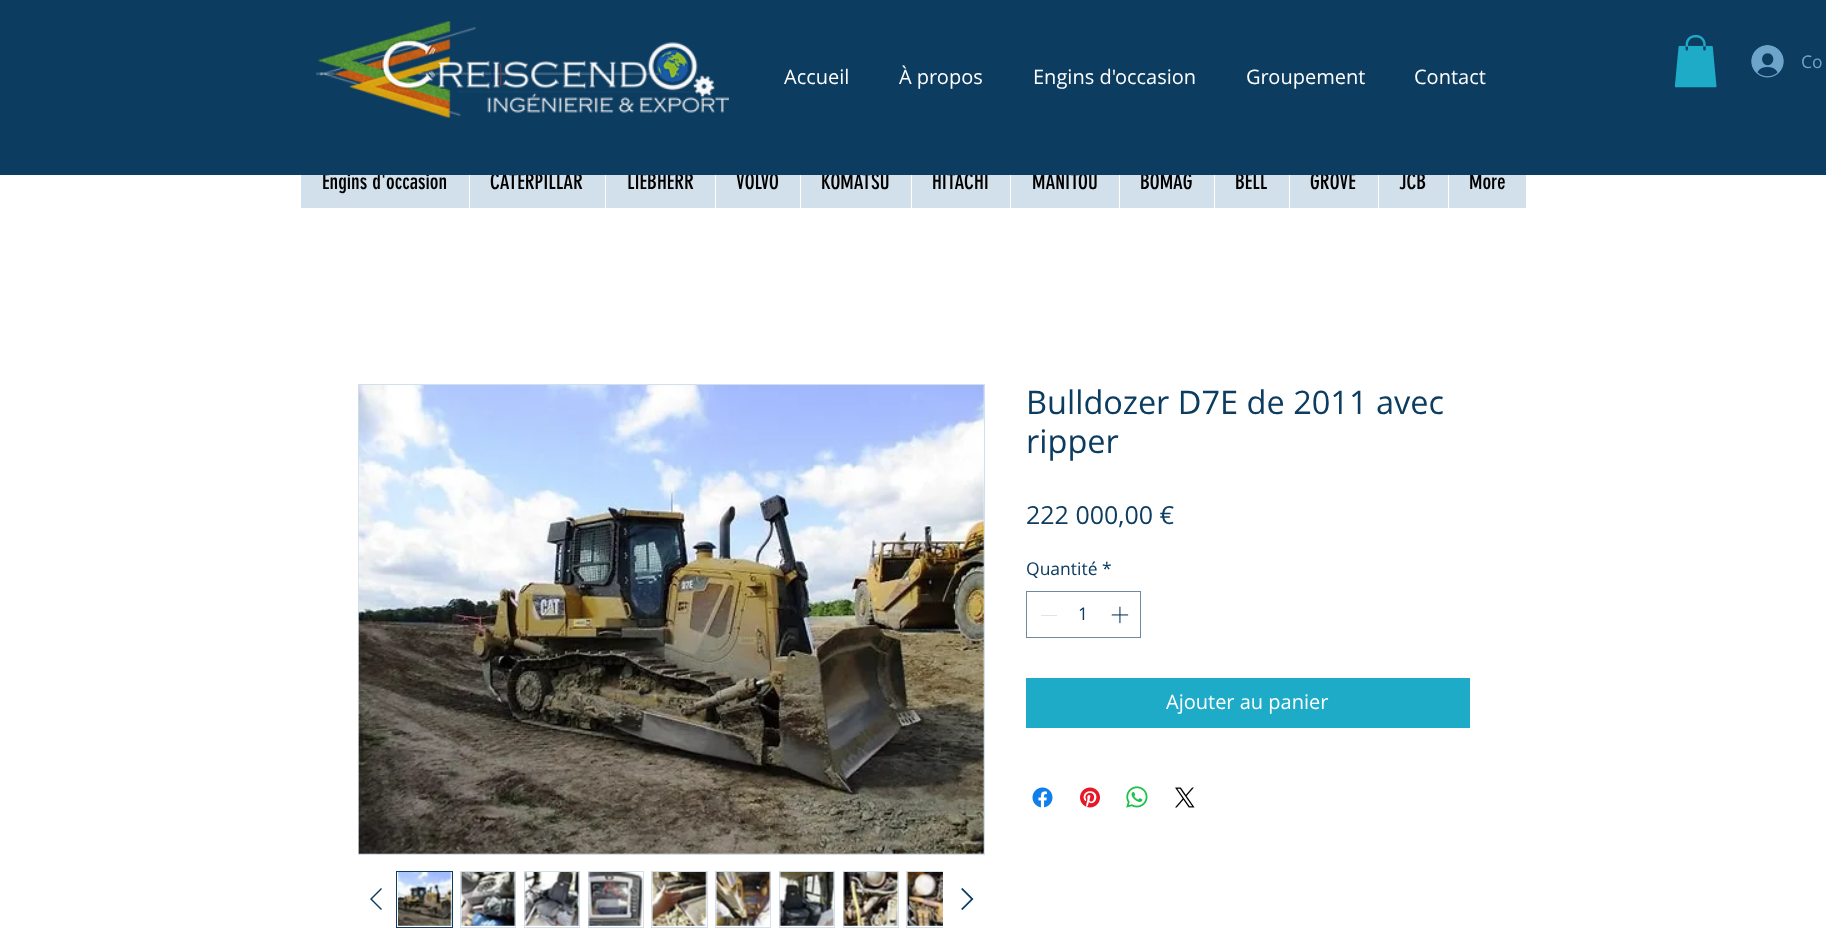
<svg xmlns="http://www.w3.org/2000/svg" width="1826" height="940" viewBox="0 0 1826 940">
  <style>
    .t1 { font: 21.25px 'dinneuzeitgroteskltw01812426'; fill: #000; }
    .t2 { font: 17.5px Open Sans; fill: #6ea4ca; }
    .t3 { font: 20px Open Sans; fill: #fff; }
    .t4 { font: 32.5px Open Sans; fill: #0c3c60; }
    .t5 { font: 25px Open Sans; fill: #0c3c60; }
    .t6 { font: 17.5px Open Sans; fill: #0c3c60; }
  </style>
  <defs>
    <clipPath id="clip1"><rect x="391" y="866" width="552" height="67"/></clipPath>
  </defs>
  <rect width="100%" height="100%" fill="#fff"/>
  <rect x="301" y="175" width="1225" height="33" fill="#d1e0eb"/>
  <text x="322" y="189" class="t1">Engins d'occasion</text>
  <text x="490" y="189" class="t1">CATERPILLAR</text>
  <text x="627" y="189" class="t1">LIEBHERR</text>
  <text x="736" y="189" class="t1">VOLVO</text>
  <text x="821" y="189" class="t1">KOMATSU</text>
  <text x="932" y="189" class="t1">HITACHI</text>
  <text x="1032" y="189" class="t1">MANITOU</text>
  <text x="1140" y="189" class="t1">BOMAG</text>
  <text x="1235" y="189" class="t1">BELL</text>
  <text x="1310" y="189" class="t1">GROVE</text>
  <text x="1399" y="189" class="t1">JCB</text>
  <text x="1469" y="189" class="t1">More</text>
  <rect x="0" y="0" width="1826" height="175" fill="#0c3c60"/>
  <image x="316" y="21" width="413" height="97" href="images/1.png"/>
  <image x="1674" y="35" width="43" height="53" href="images/2.png"/>
  <image x="1751" y="45" width="33" height="33" href="images/3.png"/>
  <text x="1801" y="68" class="t2">Co</text>
  <text x="784" y="84" class="t3">Accueil</text>
  <text x="899" y="84" class="t3">À propos</text>
  <text x="1033" y="84" class="t3">Engins d'occasion</text>
  <text x="1246" y="84" class="t3">Groupement</text>
  <text x="1414" y="84" class="t3">Contact</text>
  <rect x="469" y="175" width="1" height="33" fill="#fff"/>
  <rect x="605" y="175" width="1" height="33" fill="#fff"/>
  <rect x="715" y="175" width="1" height="33" fill="#fff"/>
  <rect x="800" y="175" width="1" height="33" fill="#fff"/>
  <rect x="911" y="175" width="1" height="33" fill="#fff"/>
  <rect x="1010" y="175" width="1" height="33" fill="#fff"/>
  <rect x="1119" y="175" width="1" height="33" fill="#fff"/>
  <rect x="1214" y="175" width="1" height="33" fill="#fff"/>
  <rect x="1289" y="175" width="1" height="33" fill="#fff"/>
  <rect x="1378" y="175" width="1" height="33" fill="#fff"/>
  <rect x="1448" y="175" width="1" height="33" fill="#fff"/>
  <rect x="358.5" y="384.5" width="626" height="470" fill="none" stroke="#d1e0eb"/>
  <image x="358" y="385" width="626" height="469" href="images/4.png"/>
  <path d="M381 888L382 889L372 899L382 909L381 910L370 899Z" fill="#0c3c60" fill-rule="evenodd"/>
  <rect x="396.5" y="871.5" width="56" height="56" fill="none" stroke="#0c3c60"/>
  <image x="398" y="872" width="54" height="54" href="images/5.png"/>
  <rect x="460.5" y="871.5" width="55" height="56" fill="none" stroke="#d1e0eb"/>
  <image x="460" y="872" width="56" height="54" href="images/6.png"/>
  <rect x="524.5" y="871.5" width="55" height="56" fill="none" stroke="#d1e0eb"/>
  <image x="524" y="872" width="56" height="54" href="images/7.png"/>
  <rect x="588.5" y="871.5" width="55" height="56" fill="none" stroke="#d1e0eb"/>
  <image x="588" y="872" width="55" height="54" href="images/8.png"/>
  <rect x="651.5" y="871.5" width="56" height="56" fill="none" stroke="#d1e0eb"/>
  <image x="652" y="872" width="55" height="54" href="images/9.png"/>
  <rect x="715.5" y="871.5" width="55" height="56" fill="none" stroke="#d1e0eb"/>
  <image x="715" y="872" width="56" height="54" href="images/10.png"/>
  <rect x="779.5" y="871.5" width="55" height="56" fill="none" stroke="#d1e0eb"/>
  <image x="779" y="872" width="56" height="54" href="images/11.png"/>
  <rect x="843.5" y="871.5" width="55" height="56" fill="none" stroke="#d1e0eb"/>
  <image x="843" y="872" width="55" height="54" href="images/12.png"/>
  <path d="M962.5 888L973.5 899L962.5 910L961 909L971 899L961 889Z" fill="#0c3c60" fill-rule="evenodd"/>
  <g clip-path="url(#clip1)">
    <rect x="906.5" y="871.5" width="56" height="56" fill="none" stroke="#d1e0eb"/>
  </g>
  <image x="907" y="872" width="36" height="54" href="images/13.png"/>
  <text x="1026" y="414" class="t4">Bulldozer D7E de 2011 avec</text>
  <text x="1026" y="453" class="t4">ripper</text>
  <text x="1026" y="524" class="t5">222 000,00 €</text>
  <text x="1026" y="575" class="t6">Quantité</text>
  <text x="1102" y="575" class="t6">*</text>
  <rect x="1026.5" y="591.5" width="114" height="46" fill="none" stroke="#6d8aa0"/>
  <rect x="1041" y="615" width="16" height="1" fill="#e3e3e3"/>
  <text x="1078" y="620" class="t6">1</text>
  <image x="1111" y="606" width="18" height="18" href="images/14.png"/>
  <rect x="1026" y="678" width="444" height="50" fill="#1eabc7"/>
  <text x="1166" y="709" class="t3">Ajouter au panier</text>
  <image x="1032" y="787" width="21" height="21" href="images/15.png"/>
  <image x="1080" y="787" width="20" height="21" href="images/16.png"/>
  <image x="1126" y="786" width="22" height="22" href="images/17.png"/>
  <image x="1175" y="787" width="20" height="21" href="images/18.png"/>
</svg>
